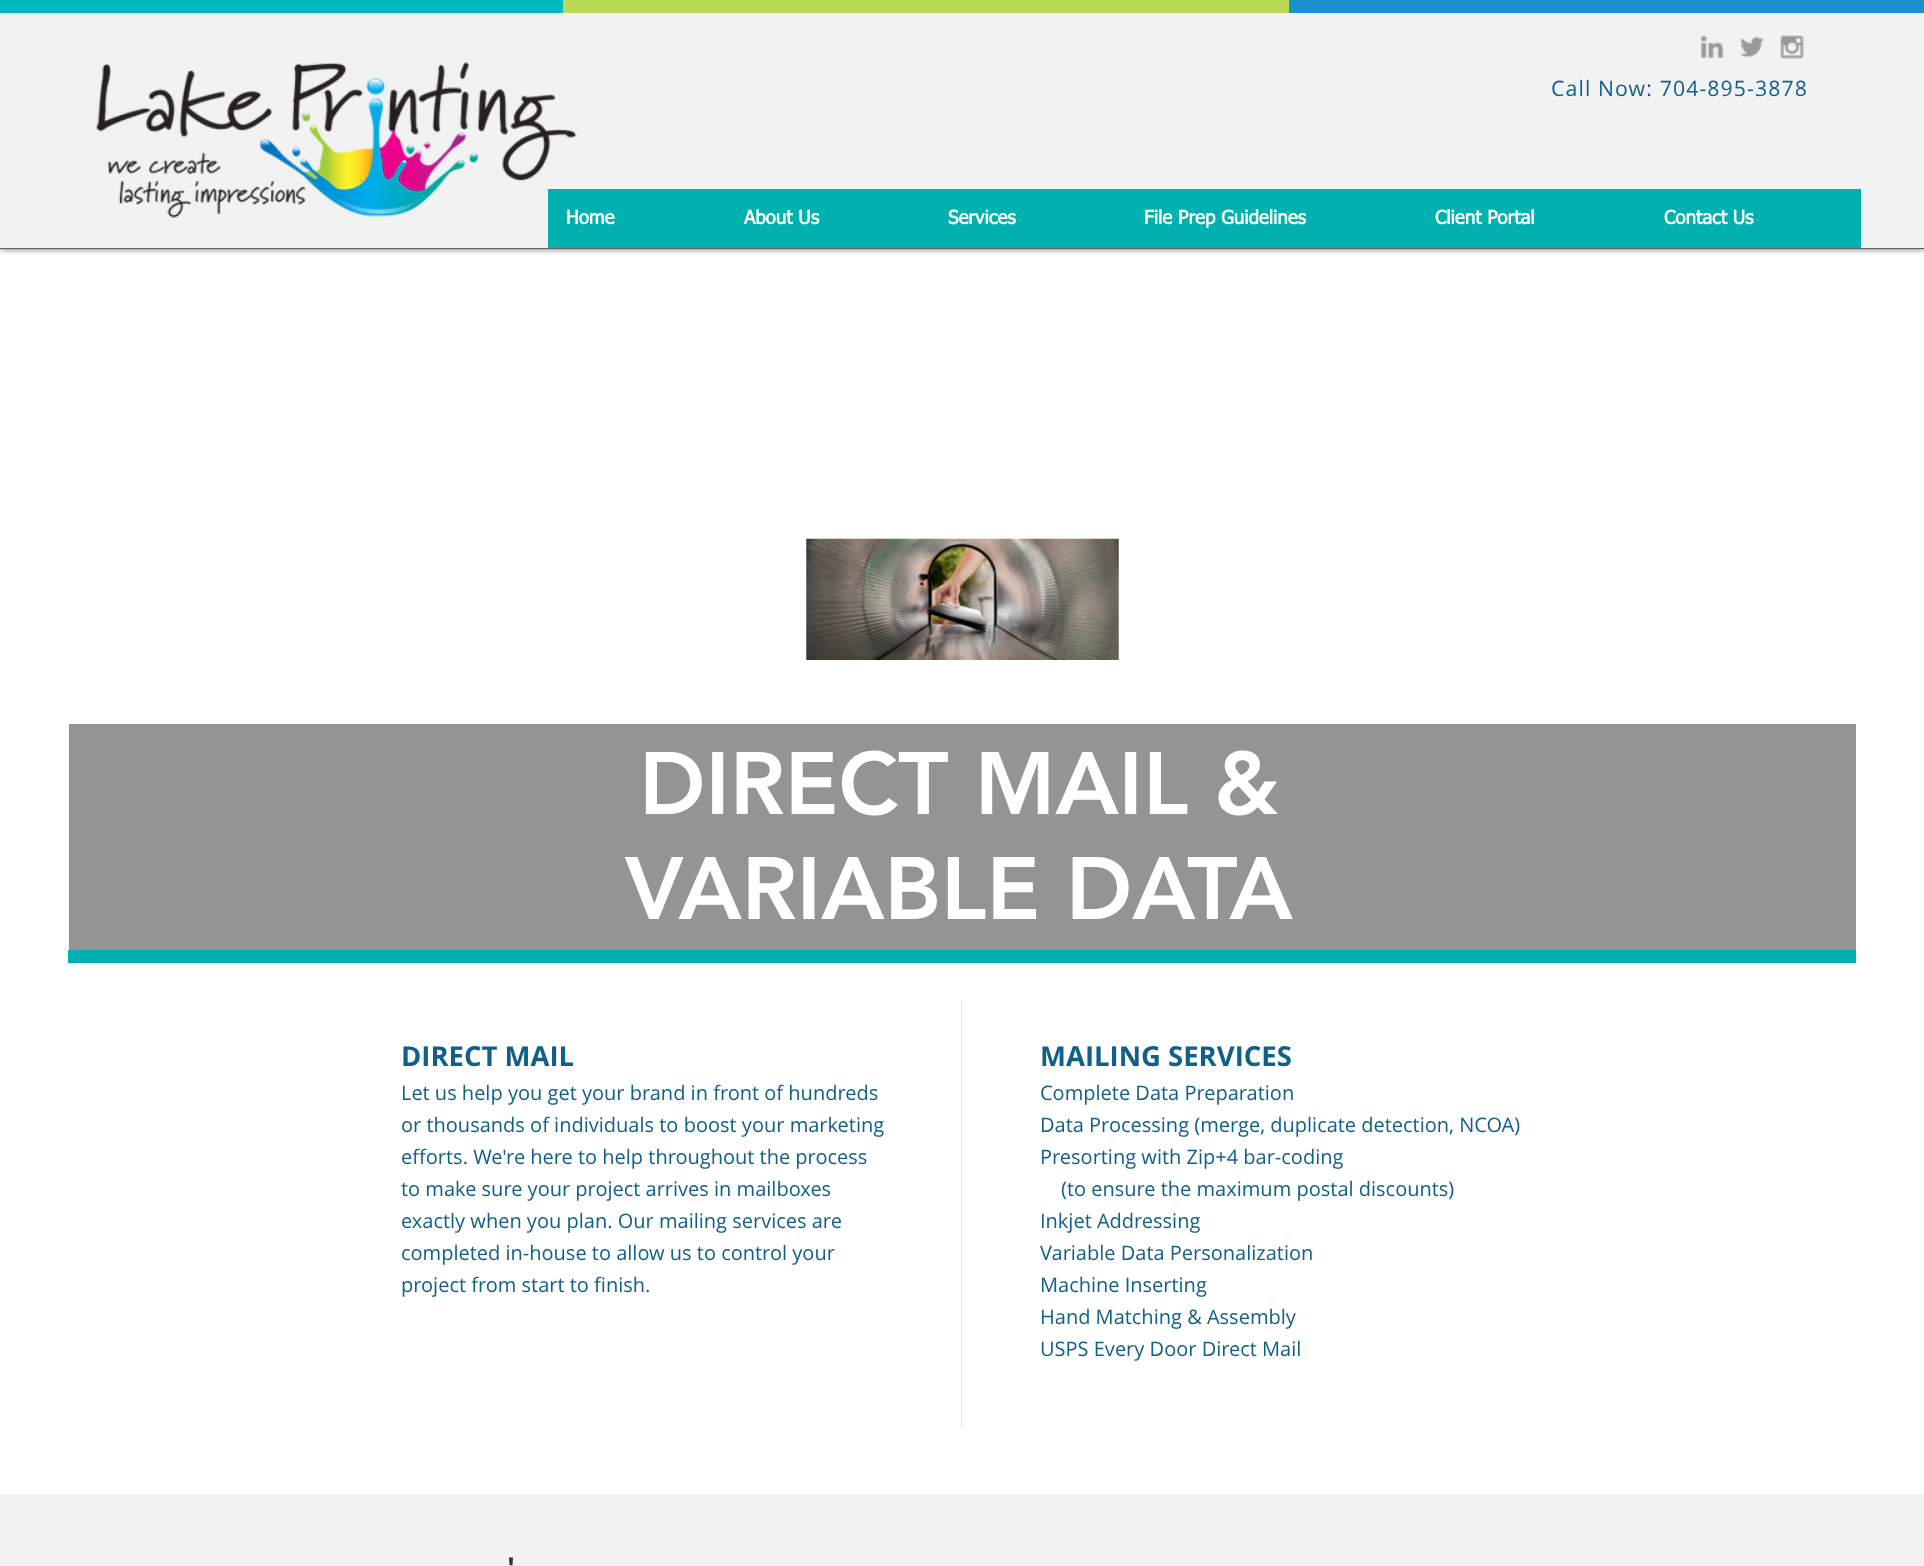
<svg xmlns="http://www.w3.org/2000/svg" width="1924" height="1566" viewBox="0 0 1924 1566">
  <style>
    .t1 { font: bold 18.75px tahoma; fill: #fff; }
    .t2 { font: 21.25px Open Sans; letter-spacing: 1.1px; fill: #116089; }
    .t3 { font: 900 87.5px 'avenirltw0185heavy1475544'; fill: #fff; }
    .t4 { font: bold 27.5px Open Sans; fill: #116089; }
    .t5 { font: 20px Open Sans; fill: #116089; }
    .t6 { font: bold 30px Open Sans; fill: #333; }
  </style>
  <rect width="100%" height="100%" fill="#fff"/>
  <rect x="0" y="0" width="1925" height="249" fill="#00000099" filter="blur(3px)"/>
  <rect x="0" y="13" width="1924" height="235" fill="#f2f2f2"/>
  <rect x="0" y="248" width="1924" height="1" fill="#616161"/>
  <rect x="0" y="0" width="563" height="13" fill="#02b8bf"/>
  <rect x="563" y="0" width="726" height="13" fill="#bada55"/>
  <rect x="1289" y="0" width="635" height="13" fill="#1990ce"/>
  <image x="1700" y="35" width="24" height="24" href="images/1.png"/>
  <image x="1740" y="36" width="24" height="22" href="images/2.png"/>
  <image x="1780" y="35" width="24" height="24" href="images/3.png"/>
  <rect x="548" y="189" width="1313" height="59" fill="#01b1af"/>
  <text x="566" y="224" class="t1">Home</text>
  <image x="96" y="62" width="481" height="156" href="images/4.png"/>
  <text x="1551" y="96" class="t2">Call Now: 704-895-3878</text>
  <text x="744" y="224" class="t1">About Us</text>
  <text x="948" y="224" class="t1">Services</text>
  <text x="1144" y="224" class="t1">File Prep Guidelines</text>
  <text x="1435" y="224" class="t1">Client Portal</text>
  <text x="1664" y="224" class="t1">Contact Us</text>
  <image x="806" y="538" width="313" height="122" href="images/5.png"/>
  <rect x="69" y="724" width="1787" height="226" fill="#949494"/>
  <text x="639" y="814" class="t3">DIRECT MAIL &amp;</text>
  <text x="625" y="919" class="t3">VARIABLE DATA</text>
  <rect x="68" y="950" width="1788" height="13" fill="#01b1af"/>
  <text x="401" y="1066" class="t4">DIRECT MAIL</text>
  <text x="401" y="1100" class="t5">Let us help you get your brand in front of hundreds</text>
  <text x="401" y="1132" class="t5">or thousands of individuals to boost your marketing</text>
  <text x="401" y="1164" class="t5">efforts. We're here to help throughout the process</text>
  <text x="401" y="1196" class="t5">to make sure your project arrives in mailboxes</text>
  <text x="401" y="1228" class="t5">exactly when you plan. Our mailing services are</text>
  <text x="401" y="1260" class="t5">completed in-house to allow us to control your</text>
  <text x="401" y="1292" class="t5">project from start to finish.</text>
  <rect x="961" y="1000" width="1" height="428" fill="#e2e2e2"/>
  <text x="1040" y="1066" class="t4">MAILING SERVICES</text>
  <text x="1040" y="1100" class="t5">Complete Data Preparation</text>
  <text x="1040" y="1132" class="t5">Data Processing (merge, duplicate detection, NCOA)</text>
  <text x="1040" y="1164" class="t5">Presorting with Zip+4 bar-coding</text>
  <text x="1061" y="1196" class="t5">(to ensure the maximum postal discounts)</text>
  <text x="1040" y="1228" class="t5">Inkjet Addressing</text>
  <text x="1040" y="1260" class="t5">Variable Data Personalization</text>
  <text x="1040" y="1292" class="t5">Machine Inserting</text>
  <text x="1040" y="1324" class="t5">Hand Matching &amp; Assembly</text>
  <text x="1040" y="1356" class="t5">USPS Every Door Direct Mail</text>
  <rect x="0" y="1494" width="1924" height="72" fill="#f2f2f2"/>
  <text x="507" y="1579" class="t6">'</text>
</svg>
